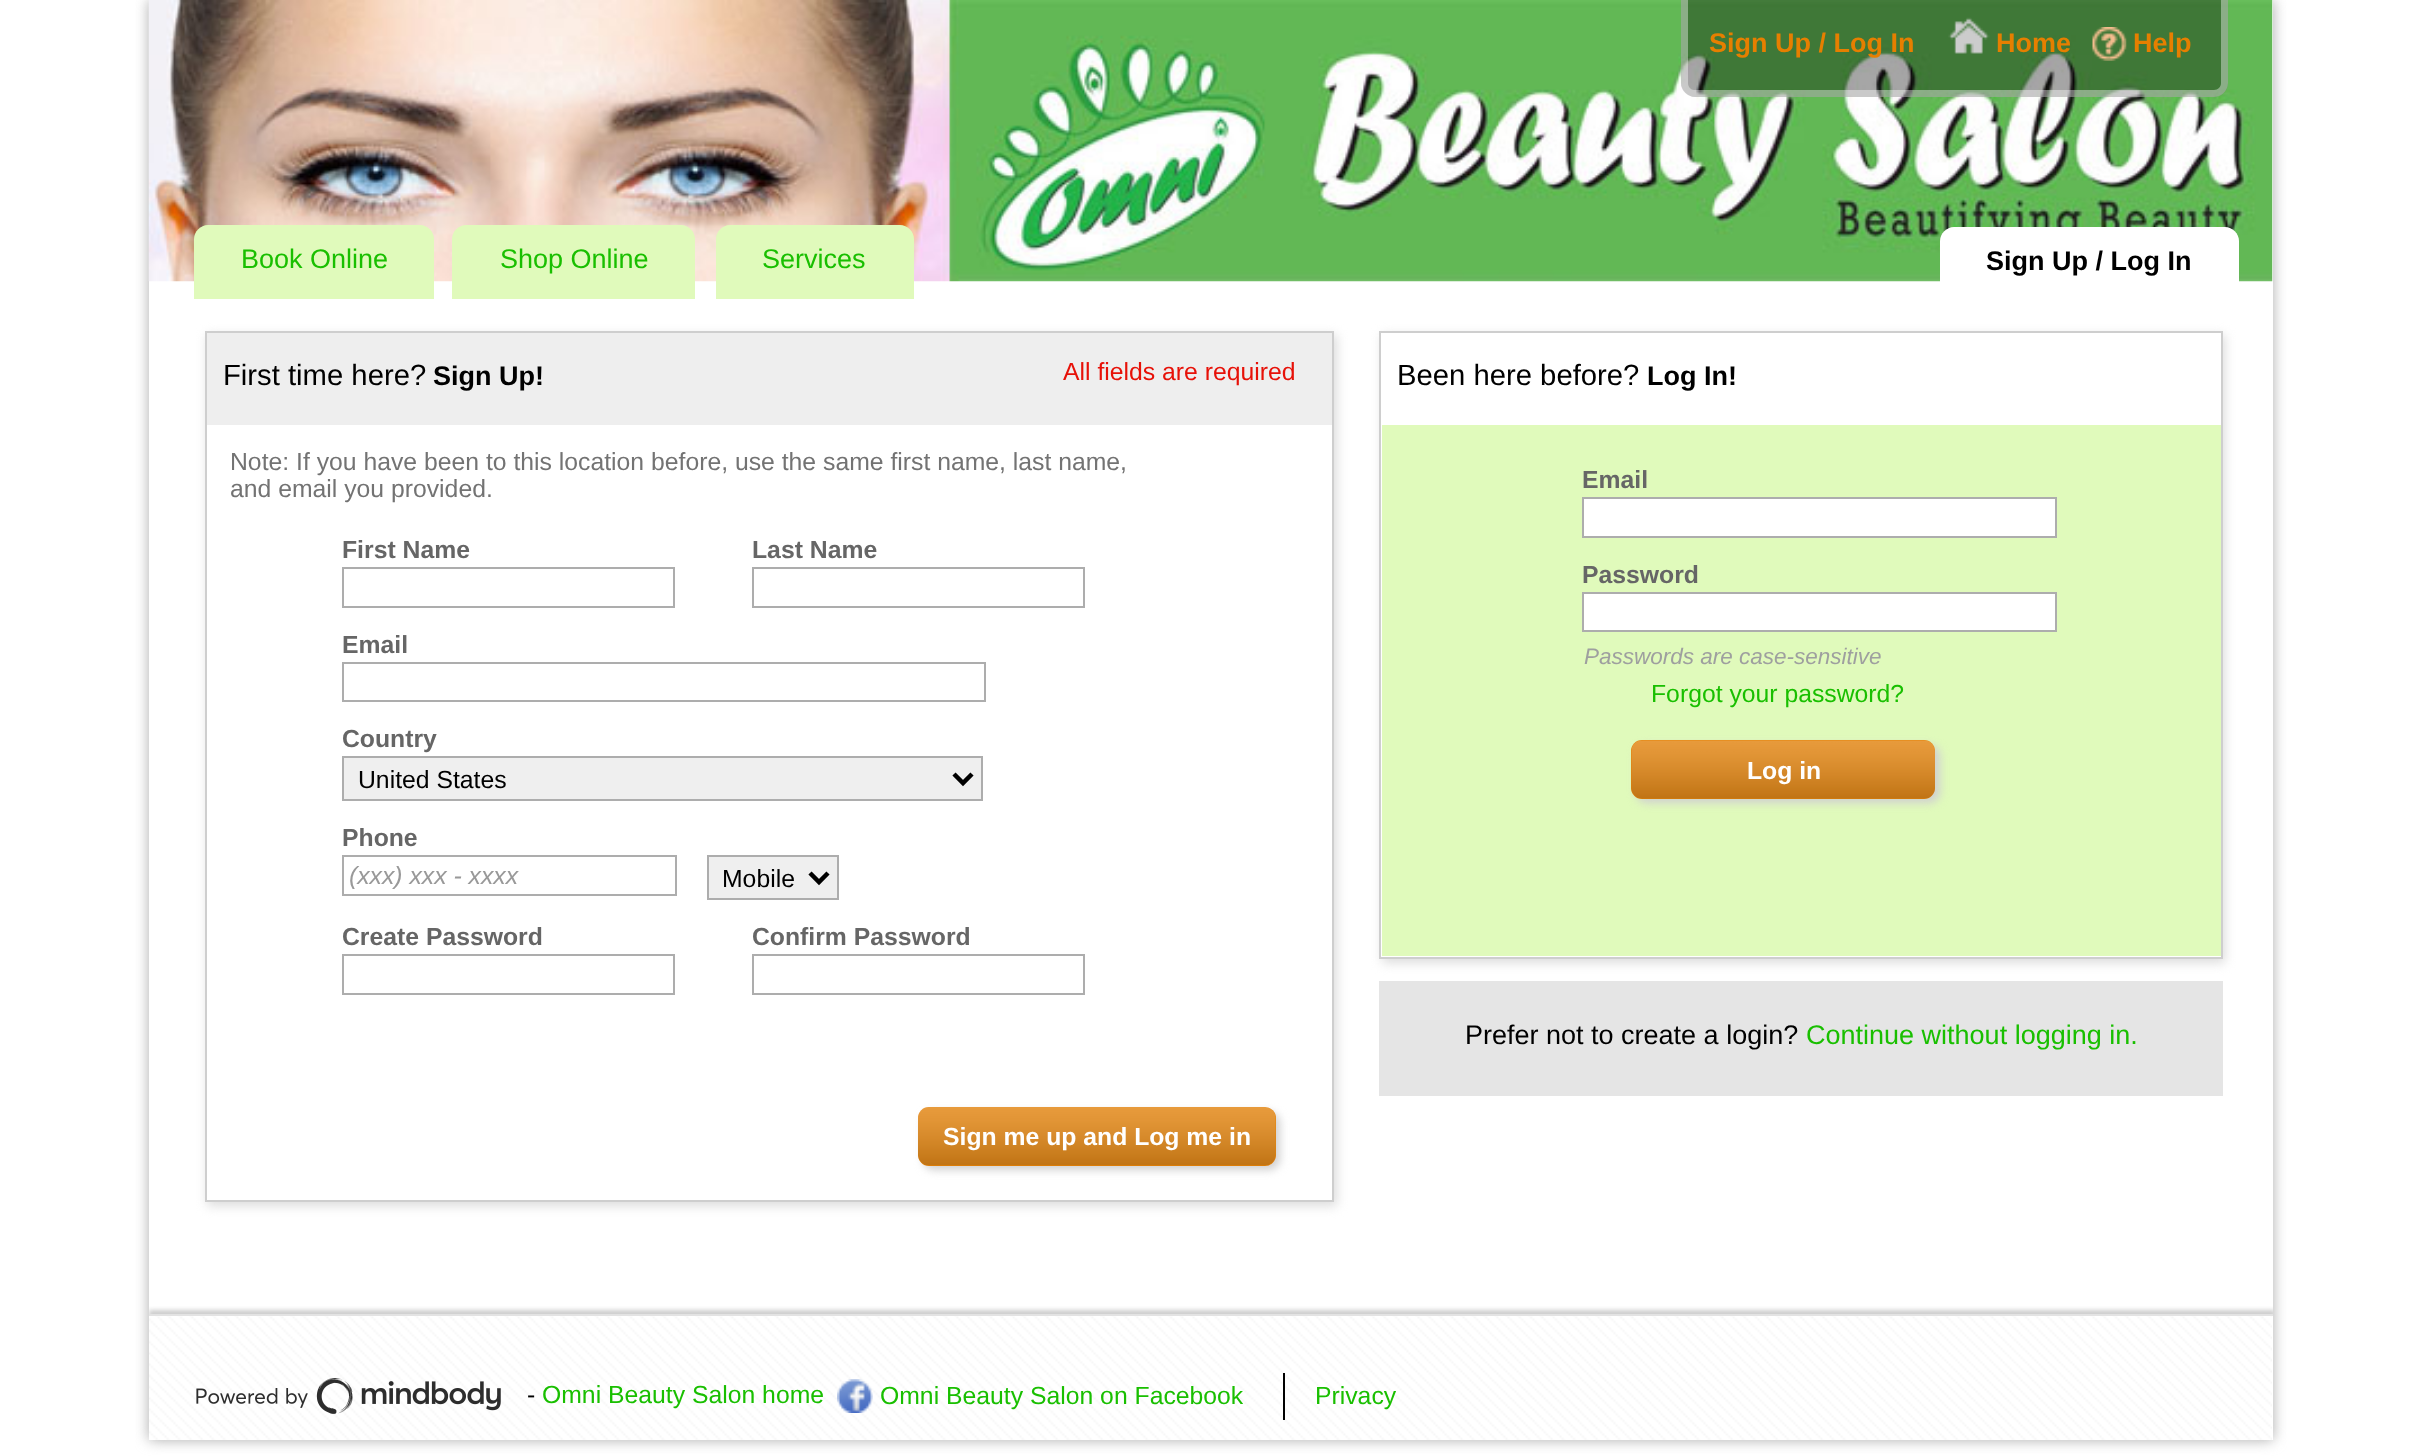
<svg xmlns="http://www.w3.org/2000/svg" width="2420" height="1456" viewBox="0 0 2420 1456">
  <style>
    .t1 { font: bold 27px Liberation Sans; fill: #e67f00; }
    .t2 { font: 27px Liberation Sans; fill: #19bf00; }
    .t3 { font: bold 27px Liberation Sans; fill: #000; }
    .t4 { font: 29.25px Liberation Sans; fill: #000; }
    .t5 { font: 24.75px Liberation Sans; fill: #e71108; }
    .t6 { font: 24.75px Liberation Sans; fill: #737373; }
    .t7 { font: bold 24.75px Liberation Sans; fill: #666; }
    .t8 { font: 24.75px Liberation Sans; fill: #000; }
    .t9 { font: italic 24.75px Liberation Sans; fill: #999; }
    .t10 { font: bold 24.75px Liberation Sans; fill: #fff; }
    .t11 { font: italic 22.5px Liberation Sans; fill: #9e9f9f; }
    .t12 { font: 24.75px Liberation Sans; fill: #19bf00; }
    .t13 { font: 27px Liberation Sans; fill: #000; }
  </style>
  <defs>
    <clipPath id="clip1"><rect x="349" y="862" width="322" height="27"/></clipPath>
    <clipPath id="clip2"><path d="M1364 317H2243V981H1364ZM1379 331H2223V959H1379Z" clip-rule="evenodd"/></clipPath>
    <clipPath id="clip3"><rect x="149" y="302" width="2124" height="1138"/></clipPath>
    <clipPath id="clip4"><rect x="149" y="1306" width="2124" height="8"/></clipPath>
  </defs>
  <rect width="100%" height="100%" fill="#fff"/>
  <rect x="149" y="0" width="2124" height="1440" fill="#ababab" filter="blur(7px)"/>
  <rect x="149" y="0" width="2124" height="1440" fill="#fff"/>
  <image x="148" y="0" width="2125" height="282" href="images/1.png"/>
  <path d="M1681 0H2228V83C2228 90.5 2221.5 97 2214 97H1695C1687.5 97 1681 90.5 1681 83Z" fill="#00000059"/>
  <path d="M1681 0H2228V83C2228 91 2221 97 2214 97H1694C1687 97 1681 91 1681 83ZM1688 0H2221V83C2221 87 2218 90 2214 90H1694C1691 90 1688 87 1688 83Z" fill="#ffffff66" fill-rule="evenodd"/>
  <text x="1709" y="52" class="t1">Sign Up / Log In</text>
  <image x="1948" y="17" width="42" height="37" href="images/2.png"/>
  <text x="1996" y="52" class="t1">Home</text>
  <image x="2092" y="27" width="35" height="34" href="images/3.png"/>
  <text x="2133" y="52" class="t1">Help</text>
  <path d="M208 225H420C427.5 225 434 231.5 434 239V299H194V239C194 231.5 200.5 225 208 225Z" fill="#e0fabb"/>
  <text x="241" y="268" class="t2">Book Online</text>
  <path d="M466 225H681C688.5 225 695 231.5 695 239V299H452V239C452 231.5 458.5 225 466 225Z" fill="#e0fabb"/>
  <text x="500" y="268" class="t2">Shop Online</text>
  <path d="M730 225H900C907.5 225 914 231.5 914 239V299H716V239C716 231.5 722.5 225 730 225Z" fill="#e0fabb"/>
  <text x="762" y="268" class="t2">Services</text>
  <path d="M1954 227H2225C2232.5 227 2239 233.5 2239 241V302H1940V241C1940 233.5 1946.5 227 1954 227Z" fill="#fff"/>
  <text x="1986" y="270" class="t3">Sign Up / Log In</text>
  <rect x="207" y="335" width="1130" height="871" fill="#dcdcdc" filter="blur(5.5px)"/>
  <rect x="207" y="425" width="1125" height="775" fill="#fff"/>
  <rect x="206" y="332" width="1127" height="869" fill="none" stroke="#cecece" stroke-width="2"/>
  <rect x="207" y="333" width="1125" height="92" fill="#eee"/>
  <text x="223" y="385" class="t4">First time here?</text>
  <text x="433" y="385" class="t3">Sign Up!</text>
  <text x="1063" y="380" class="t5">All fields are required</text>
  <text x="230" y="470" class="t6">Note: If you have been to this location before, use the same first name, last name,</text>
  <text x="230" y="497" class="t6">and email you provided.</text>
  <text x="342" y="558" class="t7">First Name</text>
  <rect x="343" y="568" width="331" height="39" fill="none" stroke="#adadad" stroke-width="2"/>
  <text x="752" y="558" class="t7">Last Name</text>
  <rect x="753" y="568" width="331" height="39" fill="none" stroke="#adadad" stroke-width="2"/>
  <text x="342" y="653" class="t7">Email</text>
  <rect x="343" y="663" width="642" height="38" fill="none" stroke="#adadad" stroke-width="2"/>
  <text x="342" y="747" class="t7">Country</text>
  <rect x="343" y="757" width="639" height="43" fill="#efefef" stroke="#adadad" stroke-width="2"/>
  <path d="M954 774L963 783L972 774" fill="none" stroke="#000" stroke-width="4.5"/>
  <text x="358" y="788" class="t8">United States</text>
  <text x="342" y="846" class="t7">Phone</text>
  <rect x="343" y="856" width="333" height="39" fill="none" stroke="#adadad" stroke-width="2"/>
  <g clip-path="url(#clip1)">
    <text x="349" y="884" class="t9">(xxx) xxx - xxxx</text>
  </g>
  <rect x="708" y="856" width="130" height="43" fill="#efefef" stroke="#adadad" stroke-width="2"/>
  <path d="M810 873L819 882L828 873" fill="none" stroke="#000" stroke-width="4.5"/>
  <text x="722" y="887" class="t8">Mobile</text>
  <text x="342" y="945" class="t7">Create Password</text>
  <rect x="343" y="955" width="331" height="39" fill="none" stroke="#adadad" stroke-width="2"/>
  <text x="752" y="945" class="t7">Confirm Password</text>
  <rect x="753" y="955" width="331" height="39" fill="none" stroke="#adadad" stroke-width="2"/>
  <rect x="923" y="1112" width="357" height="58" rx="11" fill="#d0d0d0" filter="blur(4.5px)"/>
  <rect x="918" y="1107" width="358" height="59" rx="11" fill="#e67f00"/>
  <image x="918" y="1107" width="358" height="59" href="images/4.png"/>
  <text x="943" y="1145" class="t10">Sign me up and Log me in</text>
  <g clip-path="url(#clip2)">
    <rect x="1382" y="335" width="843" height="628" fill="#dcdcdc" filter="blur(5.5px)"/>
  </g>
  <rect x="1380" y="332" width="842" height="626" fill="none" stroke="#cecece" stroke-width="2"/>
  <text x="1397" y="385" class="t4">Been here before?</text>
  <text x="1647" y="385" class="t3">Log In!</text>
  <rect x="1382" y="425" width="839" height="531" fill="#e0fabb"/>
  <text x="1582" y="488" class="t7">Email</text>
  <rect x="1583" y="498" width="473" height="39" fill="#fff" stroke="#adadad" stroke-width="2"/>
  <text x="1582" y="583" class="t7">Password</text>
  <rect x="1583" y="593" width="473" height="38" fill="#fff" stroke="#adadad" stroke-width="2"/>
  <text x="1584" y="664" class="t11">Passwords are case-sensitive</text>
  <text x="1651" y="702" class="t12">Forgot your password?</text>
  <rect x="1636" y="745" width="304" height="58" rx="11" fill="#d0d0d0" filter="blur(4.5px)"/>
  <rect x="1631" y="740" width="304" height="59" rx="11" fill="#e67f00"/>
  <image x="1631" y="740" width="304" height="59" href="images/5.png"/>
  <text x="1747" y="779" class="t10">Log in</text>
  <rect x="1379" y="981" width="844" height="115" fill="#e5e5e5"/>
  <text x="1465" y="1044" class="t13">Prefer not to create a login?</text>
  <text x="1806" y="1044" class="t2">Continue without logging in.</text>
  <g clip-path="url(#clip3)">
    <g clip-path="url(#clip4)">
      <rect x="149" y="1310" width="2126" height="126" fill="#cecece" filter="blur(2px)"/>
    </g>
  </g>
  <image x="149" y="1316" width="2123" height="124" href="images/6.png"/>
  <rect x="149" y="1314" width="2124" height="2" fill="#e3e3e3"/>
  <image x="196" y="1378" width="305" height="36" href="images/7.png"/>
  <text x="527" y="1403" class="t8">-</text>
  <text x="542" y="1403" class="t12">Omni Beauty Salon home</text>
  <image x="837" y="1379" width="36" height="34" href="images/8.png"/>
  <text x="880" y="1404" class="t12">Omni Beauty Salon on Facebook</text>
  <rect x="1283" y="1373" width="2" height="47" fill="#000"/>
  <text x="1315" y="1404" class="t12">Privacy</text>
</svg>
